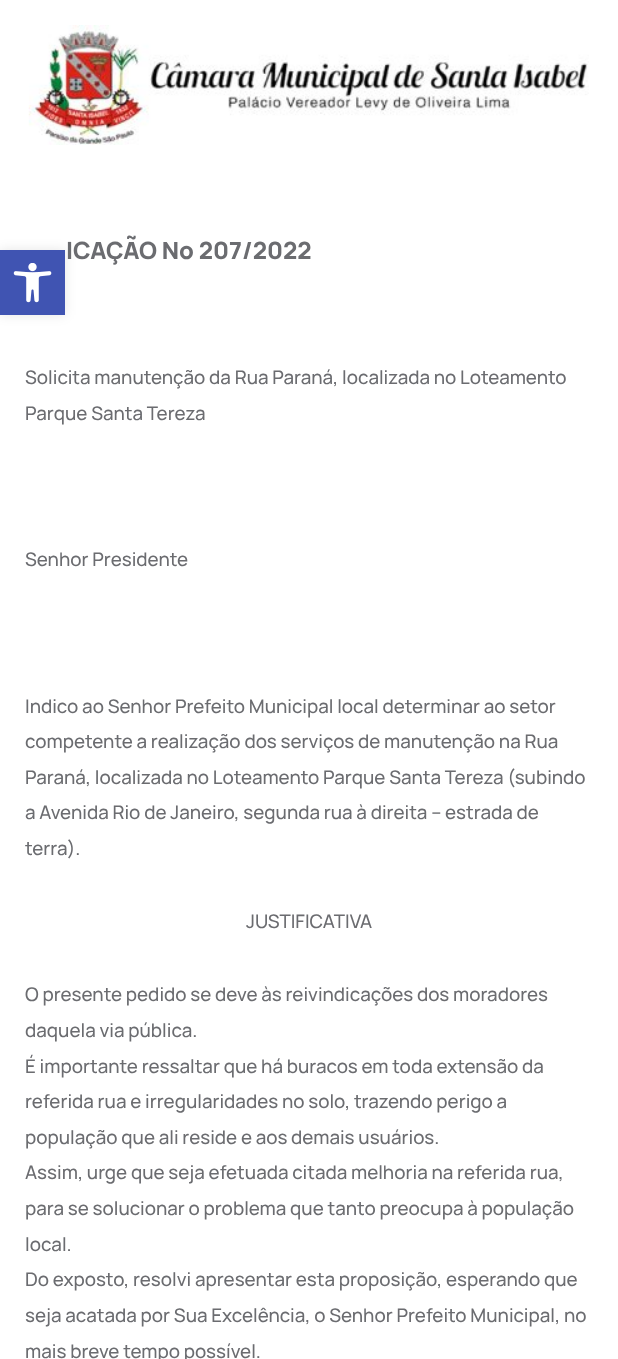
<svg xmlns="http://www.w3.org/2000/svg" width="618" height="1359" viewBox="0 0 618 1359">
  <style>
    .t1 { font: 800 23.75px Manrope; fill: #6b6c70; }
    .t2 { font: 500 18.75px Manrope; fill: #6b6c70; }
  </style>
  <rect width="100%" height="100%" fill="#fff"/>
  <rect x="0" y="250" width="65" height="65" fill="#0000001a" filter="blur(6px)"/>
  <rect x="0" y="250" width="65" height="65" fill="#4054b2"/>
  <image x="13" y="263" width="39" height="40" href="images/1.png"/>
  <image x="28" y="25" width="561" height="120" href="images/2.png"/>
  <text x="66" y="259" class="t1">ICAÇÃO No 207/2022</text>
  <text x="25" y="384" class="t2">Solicita manutenção da Rua Paraná, localizada no Loteamento</text>
  <text x="25" y="420" class="t2">Parque Santa Tereza</text>
  <text x="25" y="566" class="t2">Senhor Presidente</text>
  <text x="25" y="713" class="t2">Indico ao Senhor Prefeito Municipal local determinar ao setor</text>
  <text x="25" y="748" class="t2">competente a realização dos serviços de manutenção na Rua</text>
  <text x="25" y="784" class="t2">Paraná, localizada no Loteamento Parque Santa Tereza (subindo</text>
  <text x="25" y="819" class="t2">a Avenida Rio de Janeiro, segunda rua à direita – estrada de</text>
  <text x="25" y="855" class="t2">terra).</text>
  <text x="246" y="928" class="t2">JUSTIFICATIVA</text>
  <text x="25" y="1001" class="t2">O presente pedido se deve às reivindicações dos moradores</text>
  <text x="25" y="1037" class="t2">daquela via pública.</text>
  <text x="25" y="1073" class="t2">É importante ressaltar que há buracos em toda extensão da</text>
  <text x="25" y="1108" class="t2">referida rua e irregularidades no solo, trazendo perigo a</text>
  <text x="25" y="1144" class="t2">população que ali reside e aos demais usuários.</text>
  <text x="25" y="1179" class="t2">Assim, urge que seja efetuada citada melhoria na referida rua,</text>
  <text x="25" y="1215" class="t2">para se solucionar o problema que tanto preocupa à população</text>
  <text x="25" y="1251" class="t2">local.</text>
  <text x="25" y="1286" class="t2">Do exposto, resolvi apresentar esta proposição, esperando que</text>
  <text x="25" y="1322" class="t2">seja acatada por Sua Excelência, o Senhor Prefeito Municipal, no</text>
  <text x="25" y="1358" class="t2">mais breve tempo possível.</text>
</svg>
